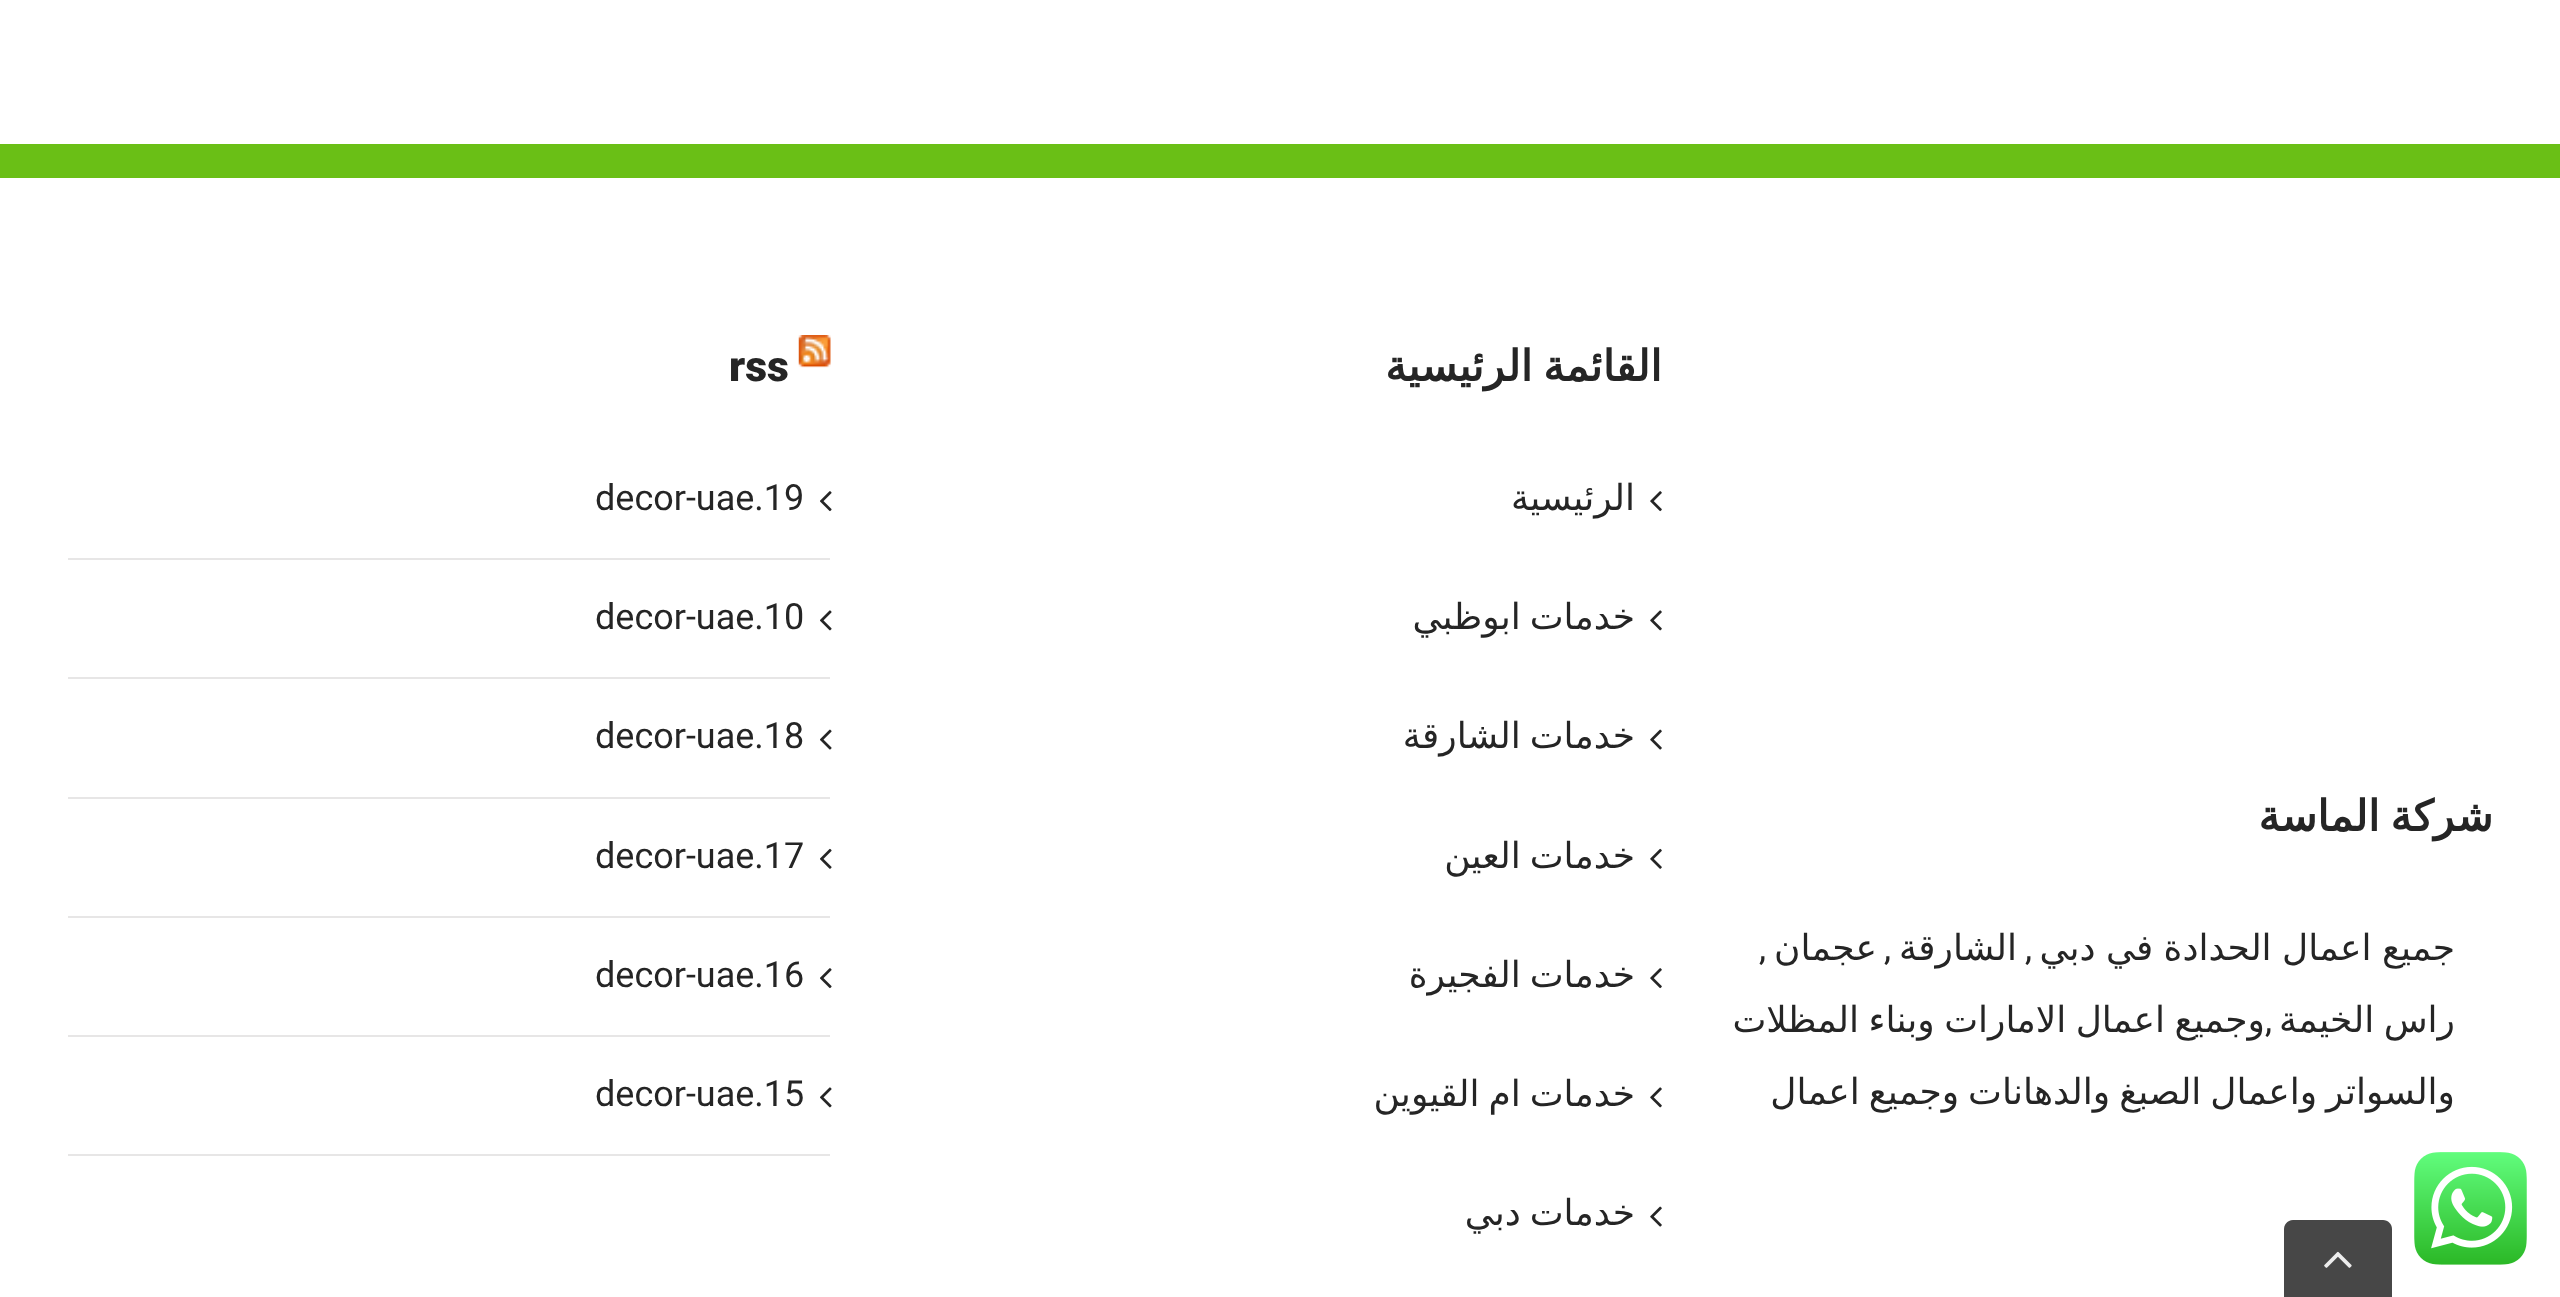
<svg xmlns="http://www.w3.org/2000/svg" width="2560" height="1297" viewBox="0 0 2560 1297">
  <style>
    .t1 { font: bold 42.75px DejaVu Sans; direction: rtl; fill: #252525; }
    .t2 { font: 36px DejaVu Sans; direction: rtl; fill: #252525; }
    .t3 { font: 36px Roboto; direction: rtl; fill: #252525; }
    .t4 { font: 900 42.75px Roboto; fill: #252525; }
    .t5 { font: 36px Roboto; fill: #252525; }
  </style>
  <rect width="100%" height="100%" fill="#fff"/>
  <rect x="0" y="144" width="2560" height="34" fill="#6abf16"/>
  <text x="2493" y="831" word-spacing="-3" class="t1">شركة الماسة</text>
  <text x="2455" y="960" word-spacing="-1" class="t2">جميع اعمال الحدادة في دبي</text>
  <text x="2032" y="960" class="t3">,</text>
  <text x="2017" y="960" class="t2">الشارقة</text>
  <text x="1891" y="960" class="t3">,</text>
  <text x="1877" y="960" class="t2">عجمان</text>
  <text x="1766" y="960" class="t3">,</text>
  <text x="2455" y="1032" word-spacing="-2" class="t2">راس الخيمة</text>
  <text x="2272" y="1032" class="t3">,</text>
  <text x="2265" y="1032" word-spacing="-2" class="t2">وجميع اعمال الامارات وبناء المظلات</text>
  <text x="2455" y="1104" word-spacing="-2.5" class="t2">والسواتر واعمال الصبغ والدهانات وجميع اعمال</text>
  <text x="1662" y="381" word-spacing="-3" class="t1">القائمة الرئيسية</text>
  <image x="1650" y="491" width="12" height="21" href="images/1.png"/>
  <text x="1635" y="510" class="t2">الرئيسية</text>
  <image x="1650" y="610" width="12" height="21" href="images/2.png"/>
  <text x="1635" y="629" word-spacing="-2.5" class="t2">خدمات ابوظبي</text>
  <image x="1650" y="729" width="12" height="21" href="images/3.png"/>
  <text x="1635" y="748" word-spacing="-2.5" class="t2">خدمات الشارقة</text>
  <image x="1650" y="848" width="12" height="21" href="images/4.png"/>
  <text x="1635" y="868" word-spacing="-2.5" class="t2">خدمات العين</text>
  <image x="1650" y="968" width="12" height="21" href="images/1.png"/>
  <text x="1635" y="987" word-spacing="-2.5" class="t2">خدمات الفجيرة</text>
  <image x="1650" y="1087" width="12" height="21" href="images/2.png"/>
  <text x="1635" y="1106" word-spacing="-2.5" class="t2">خدمات ام القيوين</text>
  <image x="1650" y="1206" width="12" height="21" href="images/3.png"/>
  <text x="1635" y="1225" word-spacing="-2.5" class="t2">خدمات دبي</text>
  <image x="798" y="335" width="33" height="33" href="images/5.png"/>
  <text x="729" y="381" class="t4">rss</text>
  <rect x="68" y="558" width="762" height="2" fill="#e7e6e6"/>
  <image x="820" y="491" width="12" height="21" href="images/6.png"/>
  <text x="595" y="510" class="t5">decor-uae.19</text>
  <rect x="68" y="677" width="762" height="2" fill="#e7e6e6"/>
  <image x="820" y="610" width="12" height="21" href="images/7.png"/>
  <text x="595" y="629" class="t5">decor-uae.10</text>
  <rect x="68" y="797" width="762" height="2" fill="#e7e6e6"/>
  <image x="820" y="729" width="12" height="21" href="images/8.png"/>
  <text x="595" y="748" class="t5">decor-uae.18</text>
  <rect x="68" y="916" width="762" height="2" fill="#e7e6e6"/>
  <image x="820" y="848" width="12" height="21" href="images/9.png"/>
  <text x="595" y="868" class="t5">decor-uae.17</text>
  <rect x="68" y="1035" width="762" height="2" fill="#e7e6e6"/>
  <image x="820" y="968" width="12" height="21" href="images/6.png"/>
  <text x="595" y="987" class="t5">decor-uae.16</text>
  <rect x="68" y="1154" width="762" height="2" fill="#e7e6e6"/>
  <image x="820" y="1087" width="12" height="21" href="images/7.png"/>
  <text x="595" y="1106" class="t5">decor-uae.15</text>
  <image x="2414" y="1152" width="113" height="113" href="images/10.png"/>
  <path d="M2293 1220H2383C2388 1220 2392 1224 2392 1229V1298H2284V1229C2284 1224 2288 1220 2293 1220Z" fill="#474747"/>
  <image x="2324" y="1251" width="28" height="17" href="images/11.png"/>
</svg>
